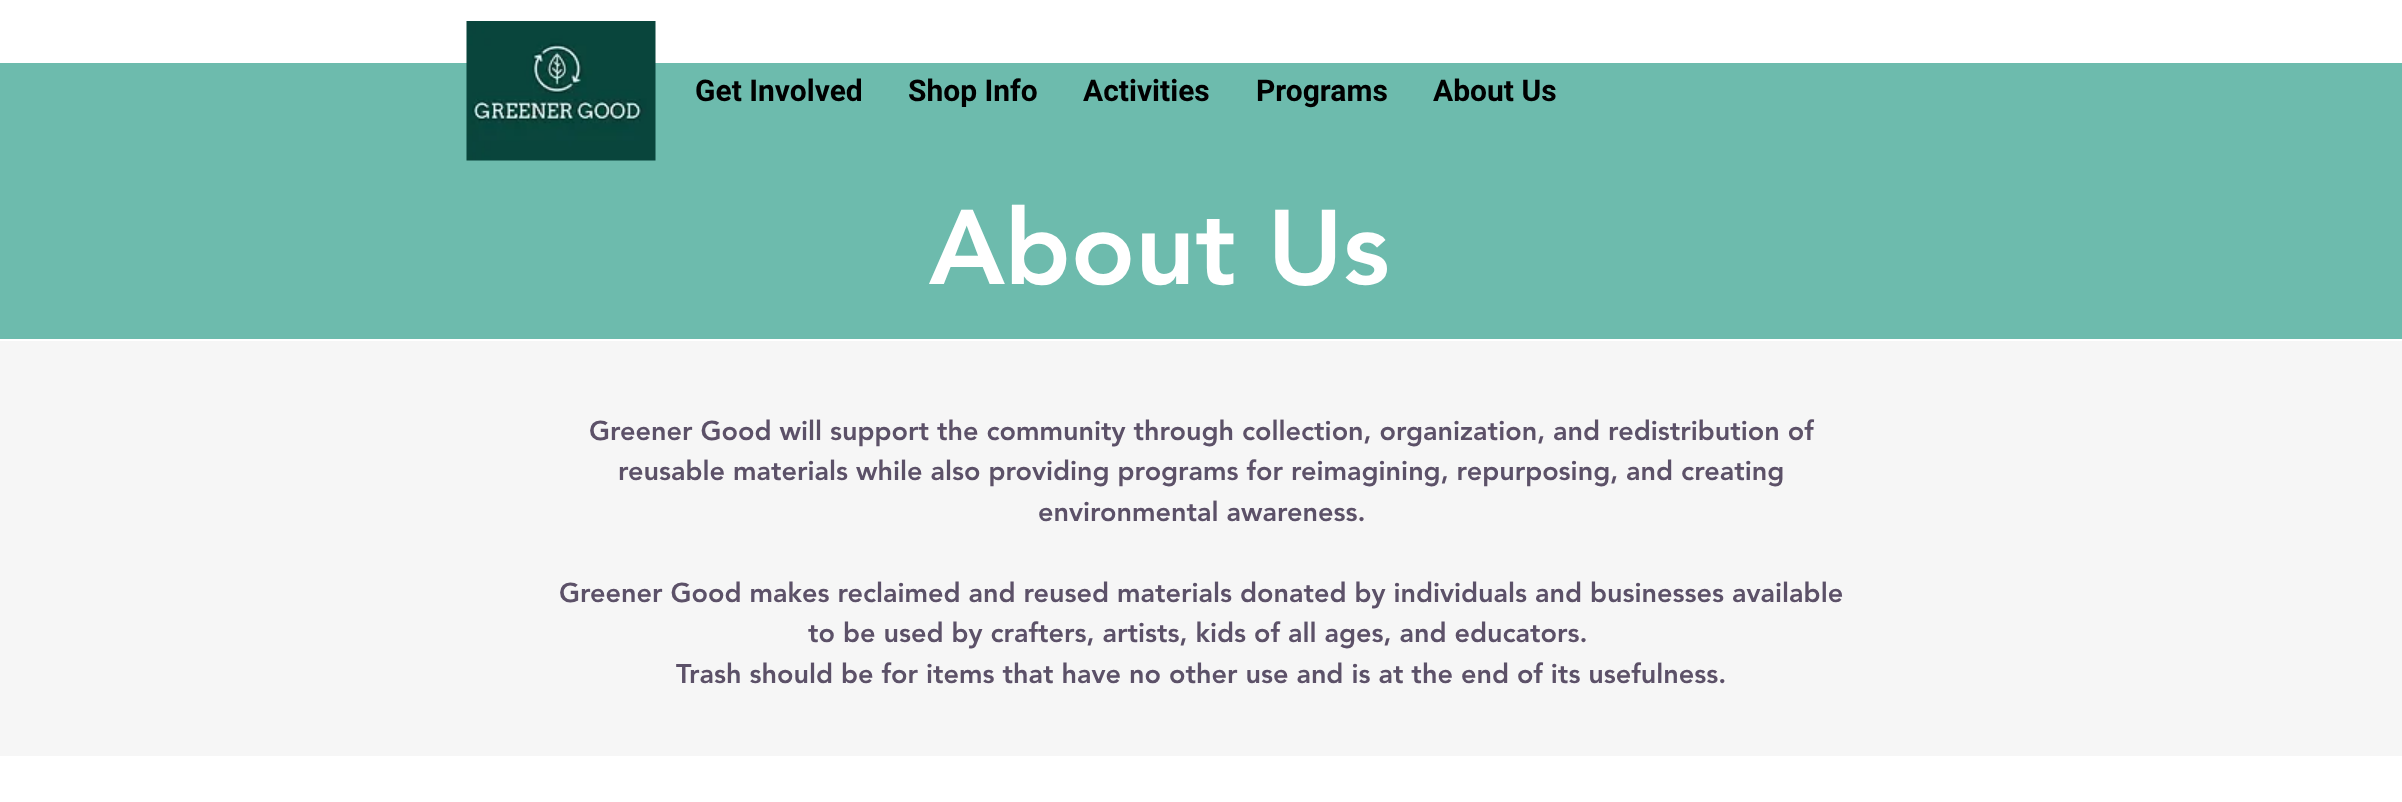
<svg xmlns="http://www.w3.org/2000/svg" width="2402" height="802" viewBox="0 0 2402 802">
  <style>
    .t1 { font: bold 30px Roboto; fill: #000; }
    .t2 { font: 900 105px 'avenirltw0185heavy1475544'; fill: #fff; }
    .t3 { font: 900 27px 'avenirltw0185heavy1475544'; fill: #5c5168; }
  </style>
  <rect width="100%" height="100%" fill="#fff"/>
  <rect x="0" y="63" width="2402" height="276" fill="#6dbbad"/>
  <image x="466" y="21" width="190" height="140" href="images/1.png"/>
  <text x="695" y="101" class="t1">Get Involved</text>
  <text x="908" y="101" class="t1">Shop Info</text>
  <text x="1083" y="101" class="t1">Activities</text>
  <text x="1256" y="101" class="t1">Programs</text>
  <text x="1433" y="101" class="t1">About Us</text>
  <text x="929" y="284" class="t2">About Us</text>
  <rect x="0" y="341" width="2402" height="415" fill="#f6f6f6"/>
  <text x="589" y="440" class="t3">Greener Good will support the community through collection, organization, and redistribution of</text>
  <text x="618" y="480" class="t3">reusable materials while also providing programs for reimagining, repurposing, and creating</text>
  <text x="1038" y="521" class="t3">environmental awareness.</text>
  <text x="559" y="602" class="t3">Greener Good makes reclaimed and reused materials donated by individuals and businesses available</text>
  <text x="808" y="642" class="t3">to be used by crafters, artists, kids of all ages, and educators.</text>
  <text x="676" y="683" class="t3">Trash should be for items that have no other use and is at the end of its usefulness.</text>
</svg>
